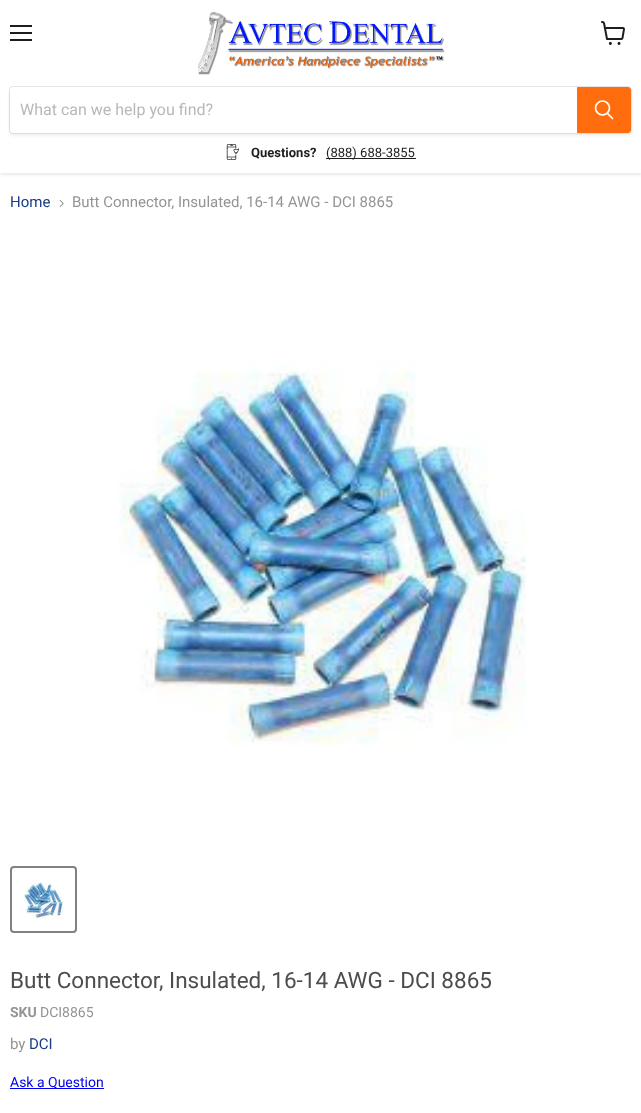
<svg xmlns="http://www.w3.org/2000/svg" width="641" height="1113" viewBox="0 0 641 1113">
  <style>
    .t1 { font: 16px Roboto; fill: #b8b8b8; }
    .t2 { font: bold 13px Roboto; fill: #1d1d1d; }
    .t3 { font: 13px Roboto; fill: #1d1d1d; }
    .t4 { font: 15px Roboto; fill: #193b82; }
    .t5 { font: 15px Roboto; fill: #949494; }
    .t6 { font: 22.5px Roboto; fill: #4d4d4d; }
    .t7 { font: bold 14px Roboto; fill: #949494; }
    .t8 { font: 14px Roboto; fill: #949494; }
    .t9 { font: 14px Roboto; fill: #00e; }
  </style>
  <defs>
    <clipPath id="clip1"><rect x="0" y="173" width="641" height="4"/></clipPath>
  </defs>
  <rect width="100%" height="100%" fill="#fff"/>
  <g clip-path="url(#clip1)">
    <rect x="0" y="1" width="641" height="173" fill="#7f7f7f40" filter="blur(2px)"/>
  </g>
  <rect x="10" y="25" width="22" height="2" fill="#1d1d1d"/>
  <rect x="10" y="32" width="22" height="2" fill="#1d1d1d"/>
  <rect x="10" y="39" width="22" height="2" fill="#1d1d1d"/>
  <image x="601" y="21" width="24" height="24" href="images/1.png"/>
  <image x="198" y="11" width="247" height="64" href="images/2.png"/>
  <rect x="9" y="88" width="623" height="48" rx="4" fill="#8080801c" filter="blur(1.5px)"/>
  <rect x="9.5" y="86.5" width="622" height="47" rx="3.5" fill="none" stroke="#80808033"/>
  <path d="M13 87H577V133H13C11.5 133 10 131.5 10 130V90C10 88.5 11.5 87 13 87Z" fill="#fff"/>
  <text x="20" y="115" class="t1">What can we help you find?</text>
  <path d="M577.5 87.5H628C629.5 87.5 630.5 88.5 630.5 90V130C630.5 131.5 629.5 132.5 628 132.5H577.5Z" fill="#ff6d0f" stroke="#ff6d0f"/>
  <path d="M612.5 118.5L607.5 113.5" fill="none" stroke="#fff" stroke-width="1.7" stroke-linecap="round"/>
  <circle cx="602.5" cy="108" r="7" fill="none" stroke="#fff" stroke-width="1.7"/>
  <image x="226" y="144" width="14" height="16" href="images/3.png"/>
  <text x="251" y="157" class="t2">Questions?</text>
  <rect x="326" y="158" width="90" height="1" fill="#1d1d1d"/>
  <text x="326" y="157" class="t3">(888) 688-3855</text>
  <text x="10" y="207" class="t4">Home</text>
  <image x="59" y="199" width="5" height="8" href="images/4.png"/>
  <text x="72" y="207" class="t5">Butt Connector, Insulated, 16-14 AWG - DCI 8865</text>
  <image x="118" y="362" width="408" height="384" href="images/5.png"/>
  <rect x="11" y="867" width="65" height="65" rx="3" fill="none" stroke="#818181" stroke-width="2"/>
  <image x="23" y="882" width="41" height="37" href="images/6.png"/>
  <text x="10" y="988" class="t6">Butt Connector, Insulated, 16-14 AWG - DCI 8865</text>
  <text x="10" y="1017" class="t7">SKU</text>
  <text x="40" y="1017" class="t8">DCI8865</text>
  <text x="10" y="1049" class="t5">by</text>
  <text x="29" y="1049" class="t4">DCI</text>
  <rect x="10" y="1088" width="94" height="1" fill="#00e"/>
  <text x="10" y="1087" class="t9">Ask a Question</text>
</svg>
